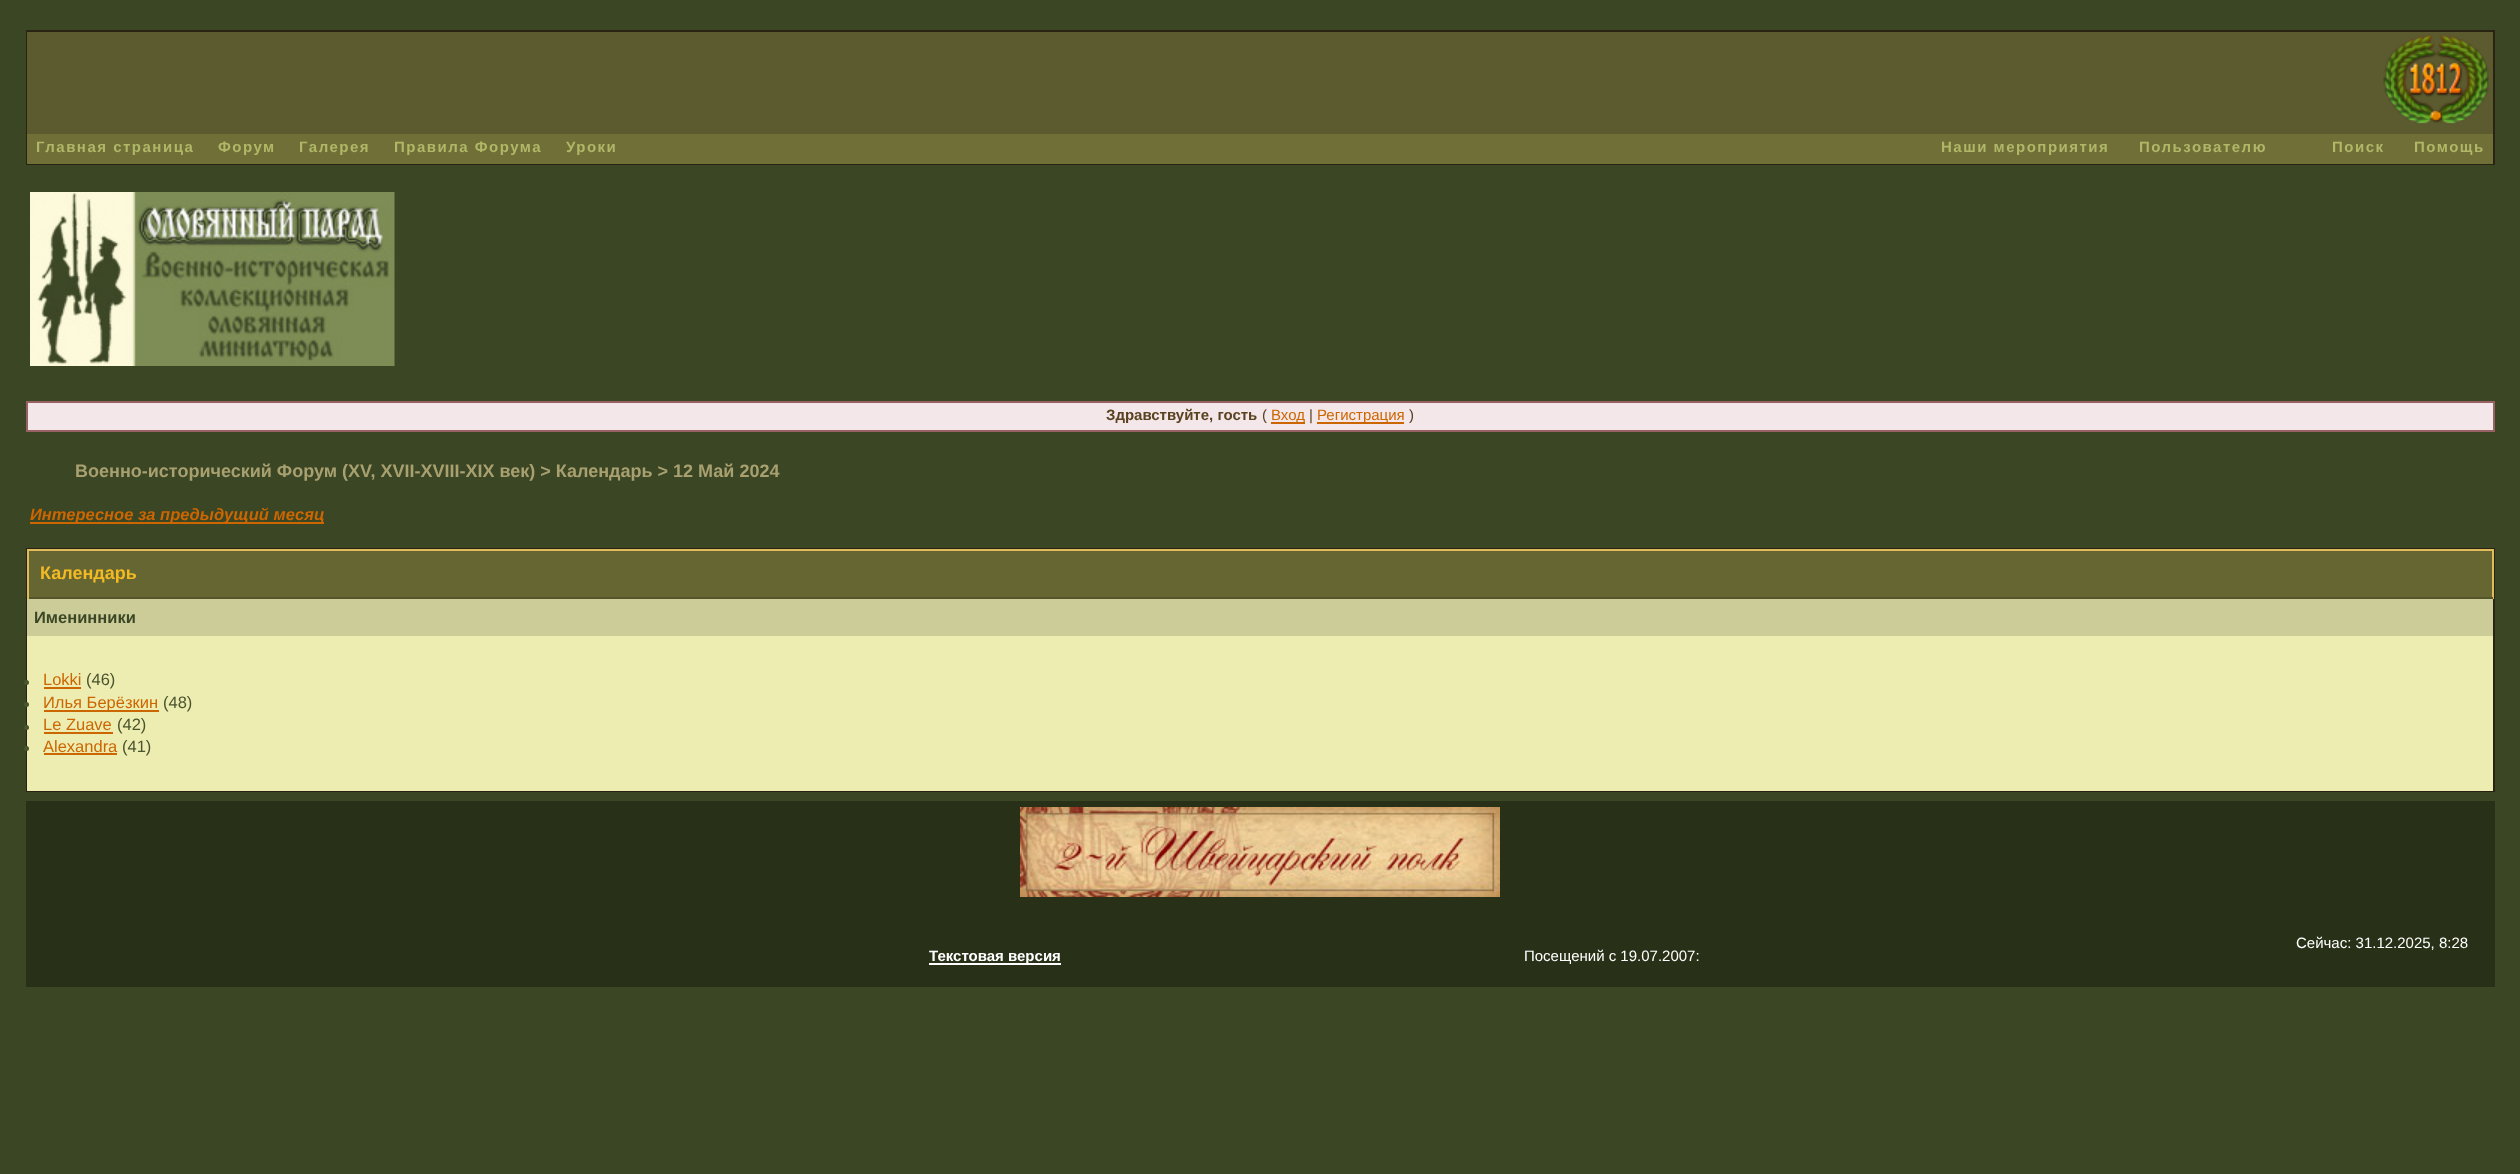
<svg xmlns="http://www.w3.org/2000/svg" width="2520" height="1174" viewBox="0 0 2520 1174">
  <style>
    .t1 { font: bold 15px Liberation Sans; letter-spacing: 1.5px; fill: #b0b868; }
    .t2 { font: bold 15px Liberation Sans; fill: #594220; }
    .t3 { font: 15px Liberation Sans; fill: #594220; }
    .t4 { font: 15px Liberation Sans; fill: #c60; }
    .t5 { font: bold 18px Liberation Sans; fill: #a9a070; }
    .t6 { font: italic bold 16.5px Liberation Sans; fill: #c60; }
    .t7 { font: bold 18px Liberation Sans; fill: #f3ba23; }
    .t8 { font: bold 16.5px Liberation Sans; fill: #3b4625; }
    .t9 { font: 16.5px Liberation Sans; fill: #c60; }
    .t10 { font: 16.5px Liberation Sans; fill: #4a542d; }
    .t11 { font: 15px Liberation Sans; fill: #fff; }
    .t12 { font: bold 15px Liberation Sans; fill: #fff; }
  </style>
  <rect width="100%" height="100%" fill="#3b4625"/>
  <rect x="27" y="31" width="2467" height="133" fill="none" stroke="#282312" stroke-width="2"/>
  <rect x="27" y="32" width="2466" height="102" fill="#5b5b2f"/>
  <image x="2383" y="34" width="106" height="91" href="images/1.png"/>
  <rect x="27" y="134" width="2466" height="30" fill="#6f6f37"/>
  <text x="36" y="152" class="t1">Главная страница</text>
  <text x="218" y="152" class="t1">Форум</text>
  <text x="299" y="152" class="t1">Галерея</text>
  <text x="394" y="152" class="t1">Правила Форума</text>
  <text x="566" y="152" class="t1">Уроки</text>
  <text x="1941" y="152" class="t1">Наши мероприятия</text>
  <text x="2139" y="152" class="t1">Пользователю</text>
  <text x="2332" y="152" class="t1">Поиск</text>
  <text x="2414" y="152" class="t1">Помощь</text>
  <image x="30" y="192" width="365" height="174" href="images/2.png"/>
  <rect x="27" y="402" width="2467" height="29" fill="#f4e7ea" stroke="#986265" stroke-width="2"/>
  <text x="1106" y="420" class="t2">Здравствуйте, гость</text>
  <text x="1262" y="420" class="t3">(</text>
  <rect x="1271" y="422" width="34" height="2" fill="#c60"/>
  <text x="1271" y="420" class="t4">Вход</text>
  <text x="1309" y="420" class="t3">|</text>
  <rect x="1317" y="422" width="87" height="2" fill="#c60"/>
  <text x="1317" y="420" class="t4">Регистрация</text>
  <text x="1409" y="420" class="t3">)</text>
  <text x="75" y="477" class="t5">Военно-исторический Форум (XV, XVII-XVIII-XIX век) &gt; Календарь &gt; 12 Май 2024</text>
  <rect x="30" y="522" width="294" height="2" fill="#c60"/>
  <text x="30" y="520" class="t6">Интересное за предыдущий месяц</text>
  <rect x="27" y="549" width="2467" height="242" fill="none" stroke="#282312" stroke-width="2"/>
  <rect x="29" y="551" width="2463" height="46" fill="#663"/>
  <rect x="27" y="549" width="2466" height="2" fill="#e0bb5a"/>
  <rect x="2492" y="549" width="2" height="50" fill="#e0bb5a"/>
  <rect x="27" y="597" width="2466" height="2" fill="#55552b"/>
  <rect x="27" y="549" width="2" height="50" fill="#e0bb5a"/>
  <text x="40" y="579" class="t7">Календарь</text>
  <rect x="27" y="599" width="2466" height="37" fill="#cc9"/>
  <text x="34" y="623" class="t8">Именинники</text>
  <rect x="27" y="636" width="2466" height="155" fill="#ededb2"/>
  <circle cx="26.5" cy="682.5" r="2.5" fill="#4a542d"/>
  <text x="43" y="685" class="t9">Lokki</text>
  <rect x="44" y="687" width="37" height="2" fill="#c60"/>
  <text x="86" y="685" class="t10">(46)</text>
  <circle cx="26.5" cy="704.5" r="2.5" fill="#4a542d"/>
  <rect x="44" y="710" width="115" height="2" fill="#c60"/>
  <text x="43" y="708" class="t9">Илья Берёзкин</text>
  <text x="163" y="708" class="t10">(48)</text>
  <circle cx="26.5" cy="727.5" r="2.5" fill="#4a542d"/>
  <text x="43" y="730" class="t9">Le Zuave</text>
  <rect x="44" y="732" width="69" height="2" fill="#c60"/>
  <text x="117" y="730" class="t10">(42)</text>
  <circle cx="26.5" cy="748.5" r="2.5" fill="#4a542d"/>
  <text x="43" y="752" class="t9">Alexandra</text>
  <rect x="44" y="753" width="73" height="2" fill="#c60"/>
  <text x="122" y="752" class="t10">(41)</text>
  <rect x="26" y="801" width="2469" height="186" fill="#283017"/>
  <image x="1020" y="807" width="480" height="90" href="images/3.png"/>
  <text x="2296" y="948" class="t11">Сейчас: 31.12.2025, 8:28</text>
  <rect x="929" y="963" width="132" height="2" fill="#fff"/>
  <text x="929" y="961" class="t12">Текстовая версия</text>
  <text x="1524" y="961" class="t11">Посещений с 19.07.2007:</text>
</svg>
